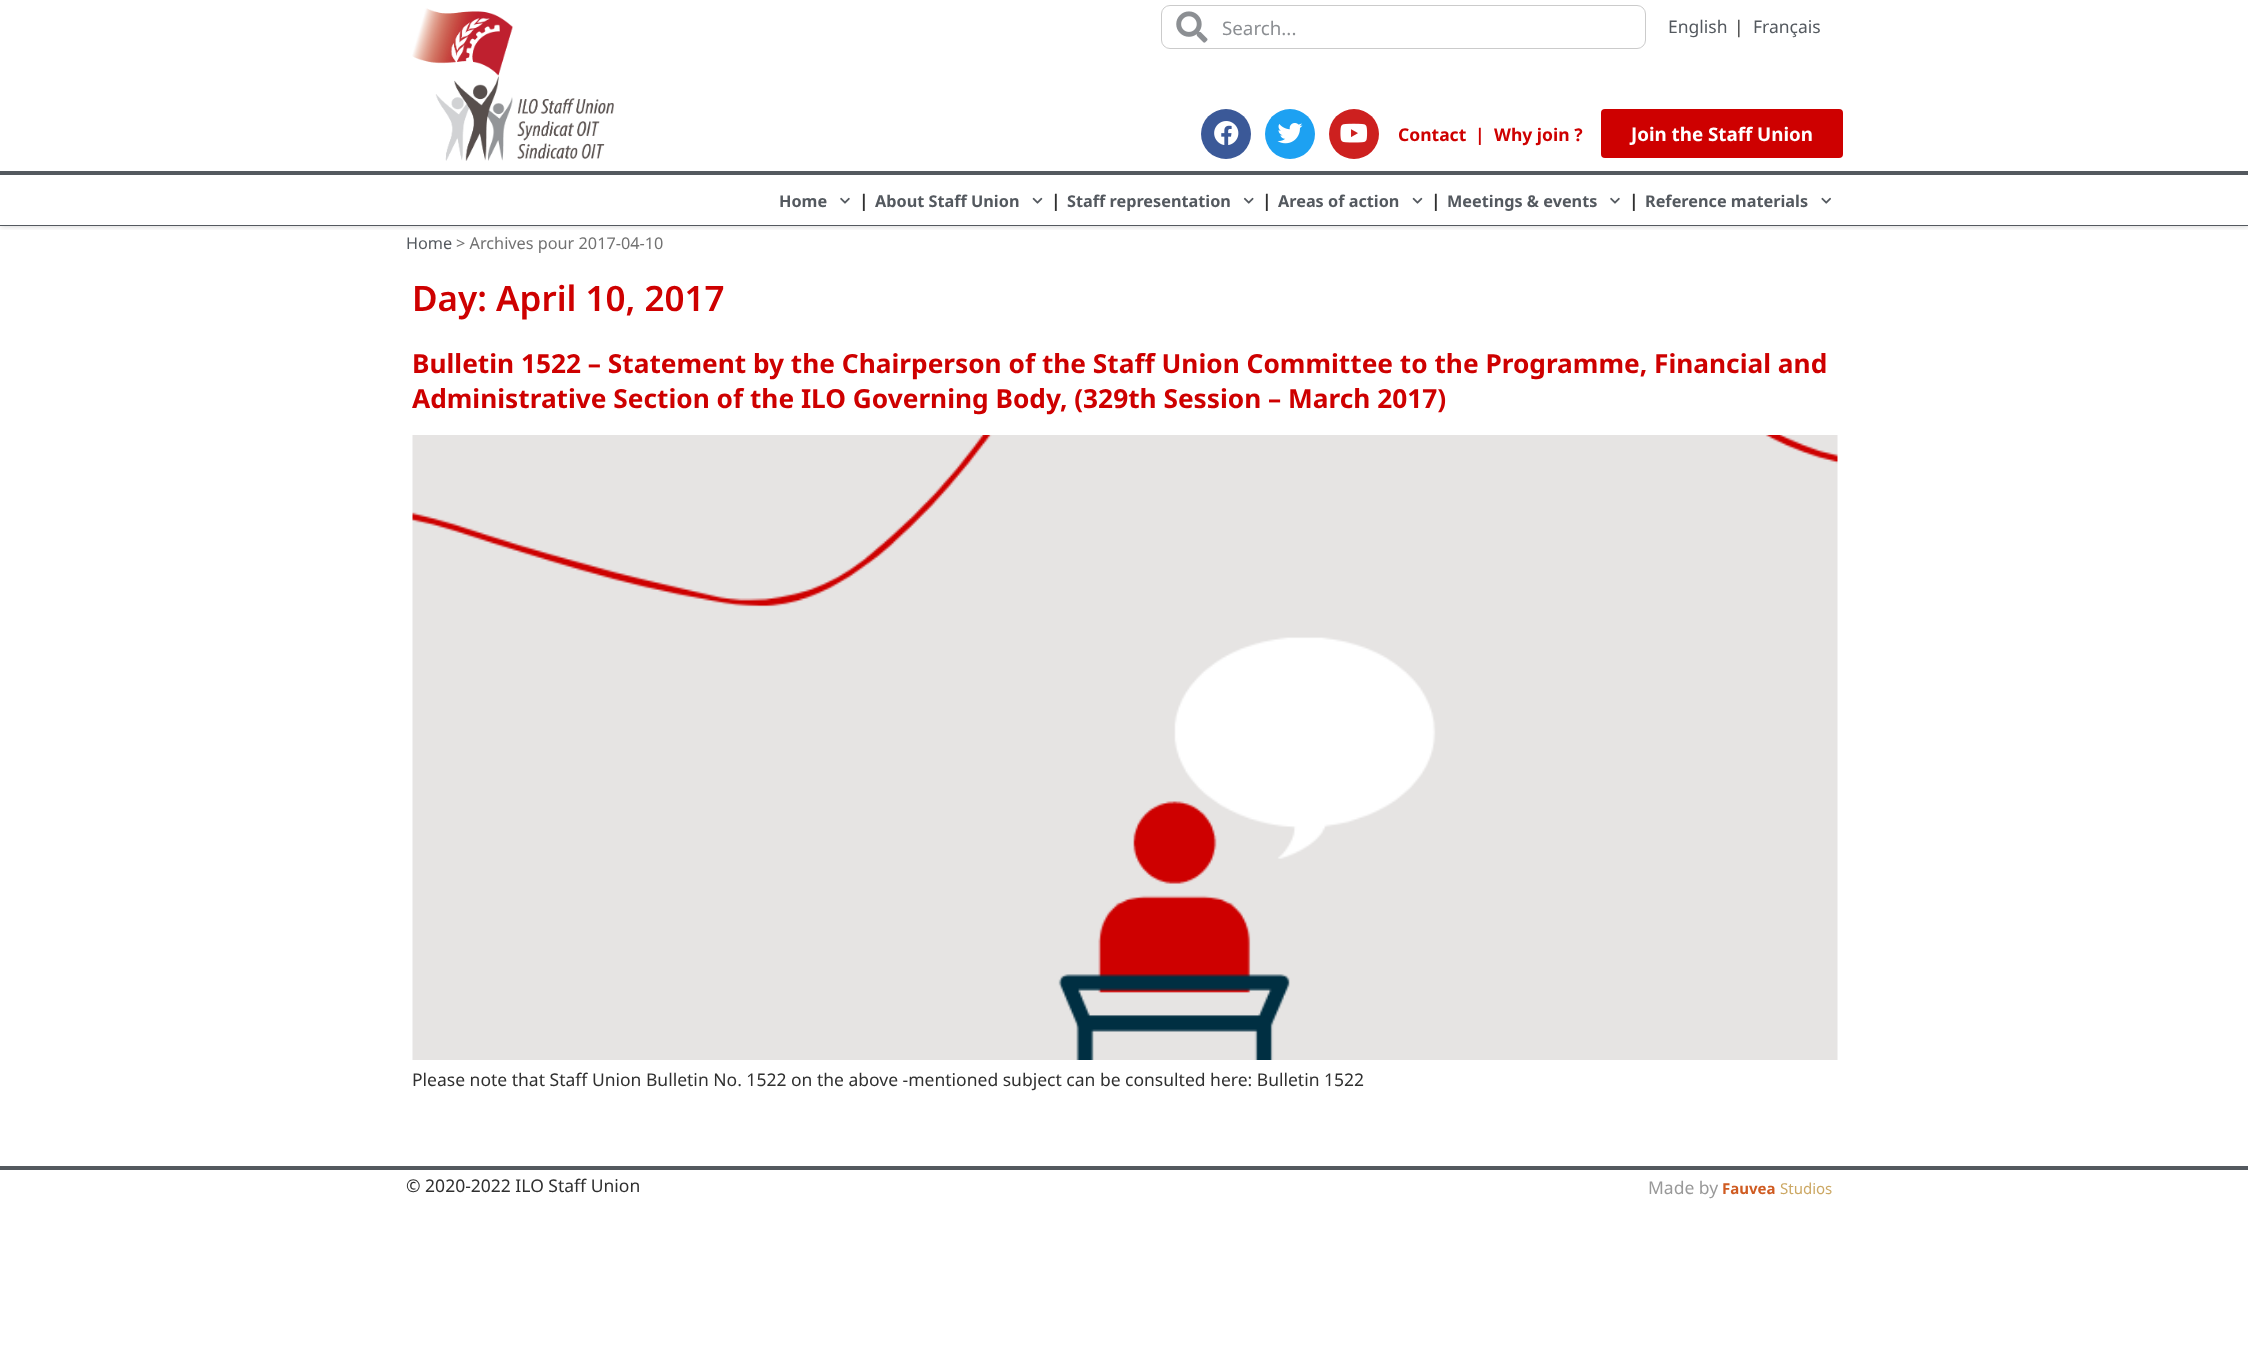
<svg xmlns="http://www.w3.org/2000/svg" width="2248" height="1357" viewBox="0 0 2248 1357">
  <style>
    .t1 { font: 18.75px Noto Sans; fill: #8c8f93; }
    .t2 { font: 17.5px Noto Sans; fill: #54595f; }
    .t3 { font: 17.5px Noto Sans; fill: #303030; }
    .t4 { font: bold 17.5px Noto Sans; fill: #ce0000; }
    .t5 { font: bold 18.75px Noto Sans; fill: #fff; }
    .t6 { font: bold 16.25px Noto Sans; fill: #54595f; }
    .t7 { font: bold 17.5px Noto Sans; fill: #303030; }
    .t8 { font: 16.25px Noto Sans; fill: #54595f; }
    .t9 { font: 16.25px Noto Sans; fill: #727272; }
    .t10 { font: 600 35px Noto Sans; fill: #ce0000; }
    .t11 { font: bold 26.25px Noto Sans; fill: #ce0000; }
    .t12 { font: 17.5px Noto Sans; fill: #999; }
    .t13 { font: bold 15px Noto Sans; fill: #cf5b21; }
    .t14 { font: 15px Noto Sans; fill: #cca864; }
  </style>
  <defs>
    <clipPath id="clip1"><rect x="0" y="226" width="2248" height="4"/></clipPath>
  </defs>
  <rect width="100%" height="100%" fill="#fff"/>
  <g clip-path="url(#clip1)">
    <rect x="0" y="175" width="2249" height="51" fill="#00000033" filter="blur(3px)"/>
  </g>
  <rect x="2" y="170" width="2245" height="1" fill="#fff"/>
  <rect x="0" y="171" width="2248" height="4" fill="#54595f"/>
  <image x="412" y="8" width="202" height="153" href="images/1.png"/>
  <rect x="1161.5" y="5.5" width="484" height="43" rx="8.5" fill="none" stroke="#cbcbcb"/>
  <image x="1176" y="11" width="32" height="32" href="images/2.png"/>
  <text x="1222" y="35" class="t1">Search...</text>
  <text x="1668" y="33" class="t2">English</text>
  <text x="1734" y="33" class="t3">|</text>
  <text x="1753" y="33" class="t2">Français</text>
  <circle cx="1226" cy="134" r="25" fill="#3b5998"/>
  <image x="1214" y="121" width="25" height="24" href="images/3.png"/>
  <circle cx="1290" cy="134" r="25" fill="#1da1f2"/>
  <image x="1277" y="123" width="26" height="21" href="images/4.png"/>
  <circle cx="1354" cy="134" r="25" fill="#cd201f"/>
  <image x="1340" y="123" width="28" height="20" href="images/5.png"/>
  <text x="1398" y="141" class="t4">Contact</text>
  <text x="1475" y="141" class="t4">|</text>
  <text x="1494" y="141" class="t4">Why join ?</text>
  <rect x="1601" y="109" width="242" height="49" rx="4" fill="#ce0000"/>
  <text x="1631" y="141" class="t5">Join the Staff Union</text>
  <rect x="0" y="225" width="2248" height="1" fill="#54595f"/>
  <text x="779" y="207" class="t6">Home</text>
  <image x="840" y="197" width="10" height="7" href="images/6.png"/>
  <text x="859" y="207" class="t7">|</text>
  <text x="875" y="207" class="t6">About Staff Union</text>
  <image x="1032" y="197" width="11" height="7" href="images/7.png"/>
  <text x="1051" y="207" class="t7">|</text>
  <text x="1067" y="207" class="t6">Staff representation</text>
  <image x="1243" y="197" width="11" height="7" href="images/8.png"/>
  <text x="1262" y="207" class="t7">|</text>
  <text x="1278" y="207" class="t6">Areas of action</text>
  <image x="1412" y="197" width="11" height="7" href="images/7.png"/>
  <text x="1431" y="207" class="t7">|</text>
  <text x="1447" y="207" class="t6">Meetings &amp; events</text>
  <image x="1610" y="197" width="10" height="7" href="images/6.png"/>
  <text x="1629" y="207" class="t7">|</text>
  <text x="1645" y="207" class="t6">Reference materials</text>
  <image x="1821" y="197" width="10" height="7" href="images/9.png"/>
  <text x="406" y="249" class="t8">Home</text>
  <text x="456" y="249" class="t9">&gt; Archives pour 2017-04-10</text>
  <text x="412" y="311" class="t10">Day: April 10, 2017</text>
  <text x="412" y="373" class="t11">Bulletin 1522 – Statement by the Chairperson of the Staff Union Committee to the Programme, Financial and</text>
  <text x="412" y="408" class="t11">Administrative Section of the ILO Governing Body, (329th Session – March 2017)</text>
  <image x="412" y="435" width="1426" height="625" href="images/10.png"/>
  <text x="412" y="1086" class="t3">Please note that Staff Union Bulletin No. 1522 on the above -mentioned subject can be consulted here: Bulletin 1522</text>
  <rect x="0" y="1166" width="2248" height="4" fill="#54595f"/>
  <text x="406" y="1192" class="t3">© 2020-2022 ILO Staff Union</text>
  <text x="1648" y="1194" class="t12">Made by</text>
  <text x="1722" y="1194" class="t13">Fauvea</text>
  <text x="1780" y="1194" class="t14">Studios</text>
</svg>
